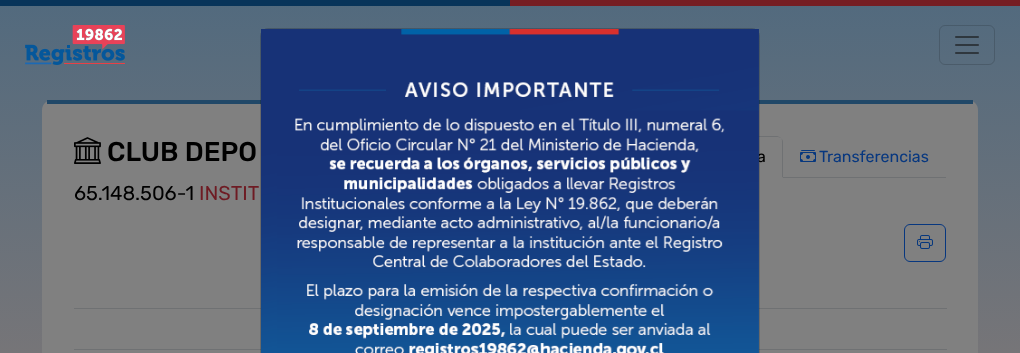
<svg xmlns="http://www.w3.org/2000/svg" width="1020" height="353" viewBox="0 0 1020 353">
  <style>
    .t1 { font: 16px Rubik; fill: #000; }
    .t2 { font: 500 27px Rubik; fill: #000; }
    .t3 { font: 16px Rubik; fill: #07377f; }
    .t4 { font: 20px Rubik; fill: #000; }
    .t5 { font: 20px Rubik; fill: #6e1b23; }
  </style>
  <defs>
    <linearGradient id="g1" gradientUnits="userSpaceOnUse" x1="510" y1="353" x2="510" y2="0"><stop offset="0" stop-color="#767578"/><stop offset="1" stop-color="#526a7e"/></linearGradient>
  </defs>
  <rect width="100%" height="100%" fill="#fff"/>
  <image x="0" y="0" width="1020" height="6" href="images/1.png"/>
  <rect x="0" y="6" width="1020" height="347" fill="url(#g1)"/>
  <image x="25" y="25" width="100" height="40" href="images/2.png"/>
  <rect x="939.5" y="25.5" width="55" height="39" rx="5.5" fill="none" stroke="#00000026"/>
  <image x="955" y="36" width="24" height="18" href="images/3.png"/>
  <path d="M52 100H968C973.5 100 978 104.5 978 110V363H42V110C42 104.5 46.5 100 52 100Z" fill="#808080"/>
  <rect x="47" y="100" width="926" height="4" fill="#214868"/>
  <path d="M694 136C692 136 691 137 690 138L693 137H778L781 138C780 137 778 136 777 136Z" fill="#6f7173"/>
  <path d="M783 178V142C783 140 782 139 781 138C782 139 782 140 782 142V177Z" fill="#6f7173"/>
  <path d="M783 178L782 177H689L688 178Z" fill="#808080"/>
  <text x="757" y="162" class="t1">a</text>
  <rect x="74" y="308" width="187" height="1" fill="#6f7173"/>
  <rect x="758" y="308" width="189" height="1" fill="#6f7173"/>
  <rect x="74" y="349" width="187" height="1" fill="#6f7173"/>
  <rect x="758" y="349" width="189" height="1" fill="#6f7173"/>
  <rect x="260.5" y="28.5" width="499" height="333" rx="7.5" fill="none" stroke="#0000002e"/>
  <image x="261" y="29" width="498" height="324" href="images/4.png"/>
  <image x="74" y="137" width="27" height="27" href="images/5.png"/>
  <text x="107" y="161" class="t2">CLUB DEPO</text>
  <rect x="783" y="177" width="163" height="1" fill="#6f7173"/>
  <image x="800" y="150" width="16" height="12" href="images/6.png"/>
  <text x="819" y="162" class="t3">Transferencias</text>
  <text x="74" y="200" class="t4">65.148.506-1</text>
  <text x="199" y="200" class="t5">INSTIT</text>
  <rect x="904.5" y="224.5" width="41" height="37" rx="5.5" fill="none" stroke="#07377f"/>
  <image x="917" y="235" width="16" height="14" href="images/7.png"/>
</svg>
